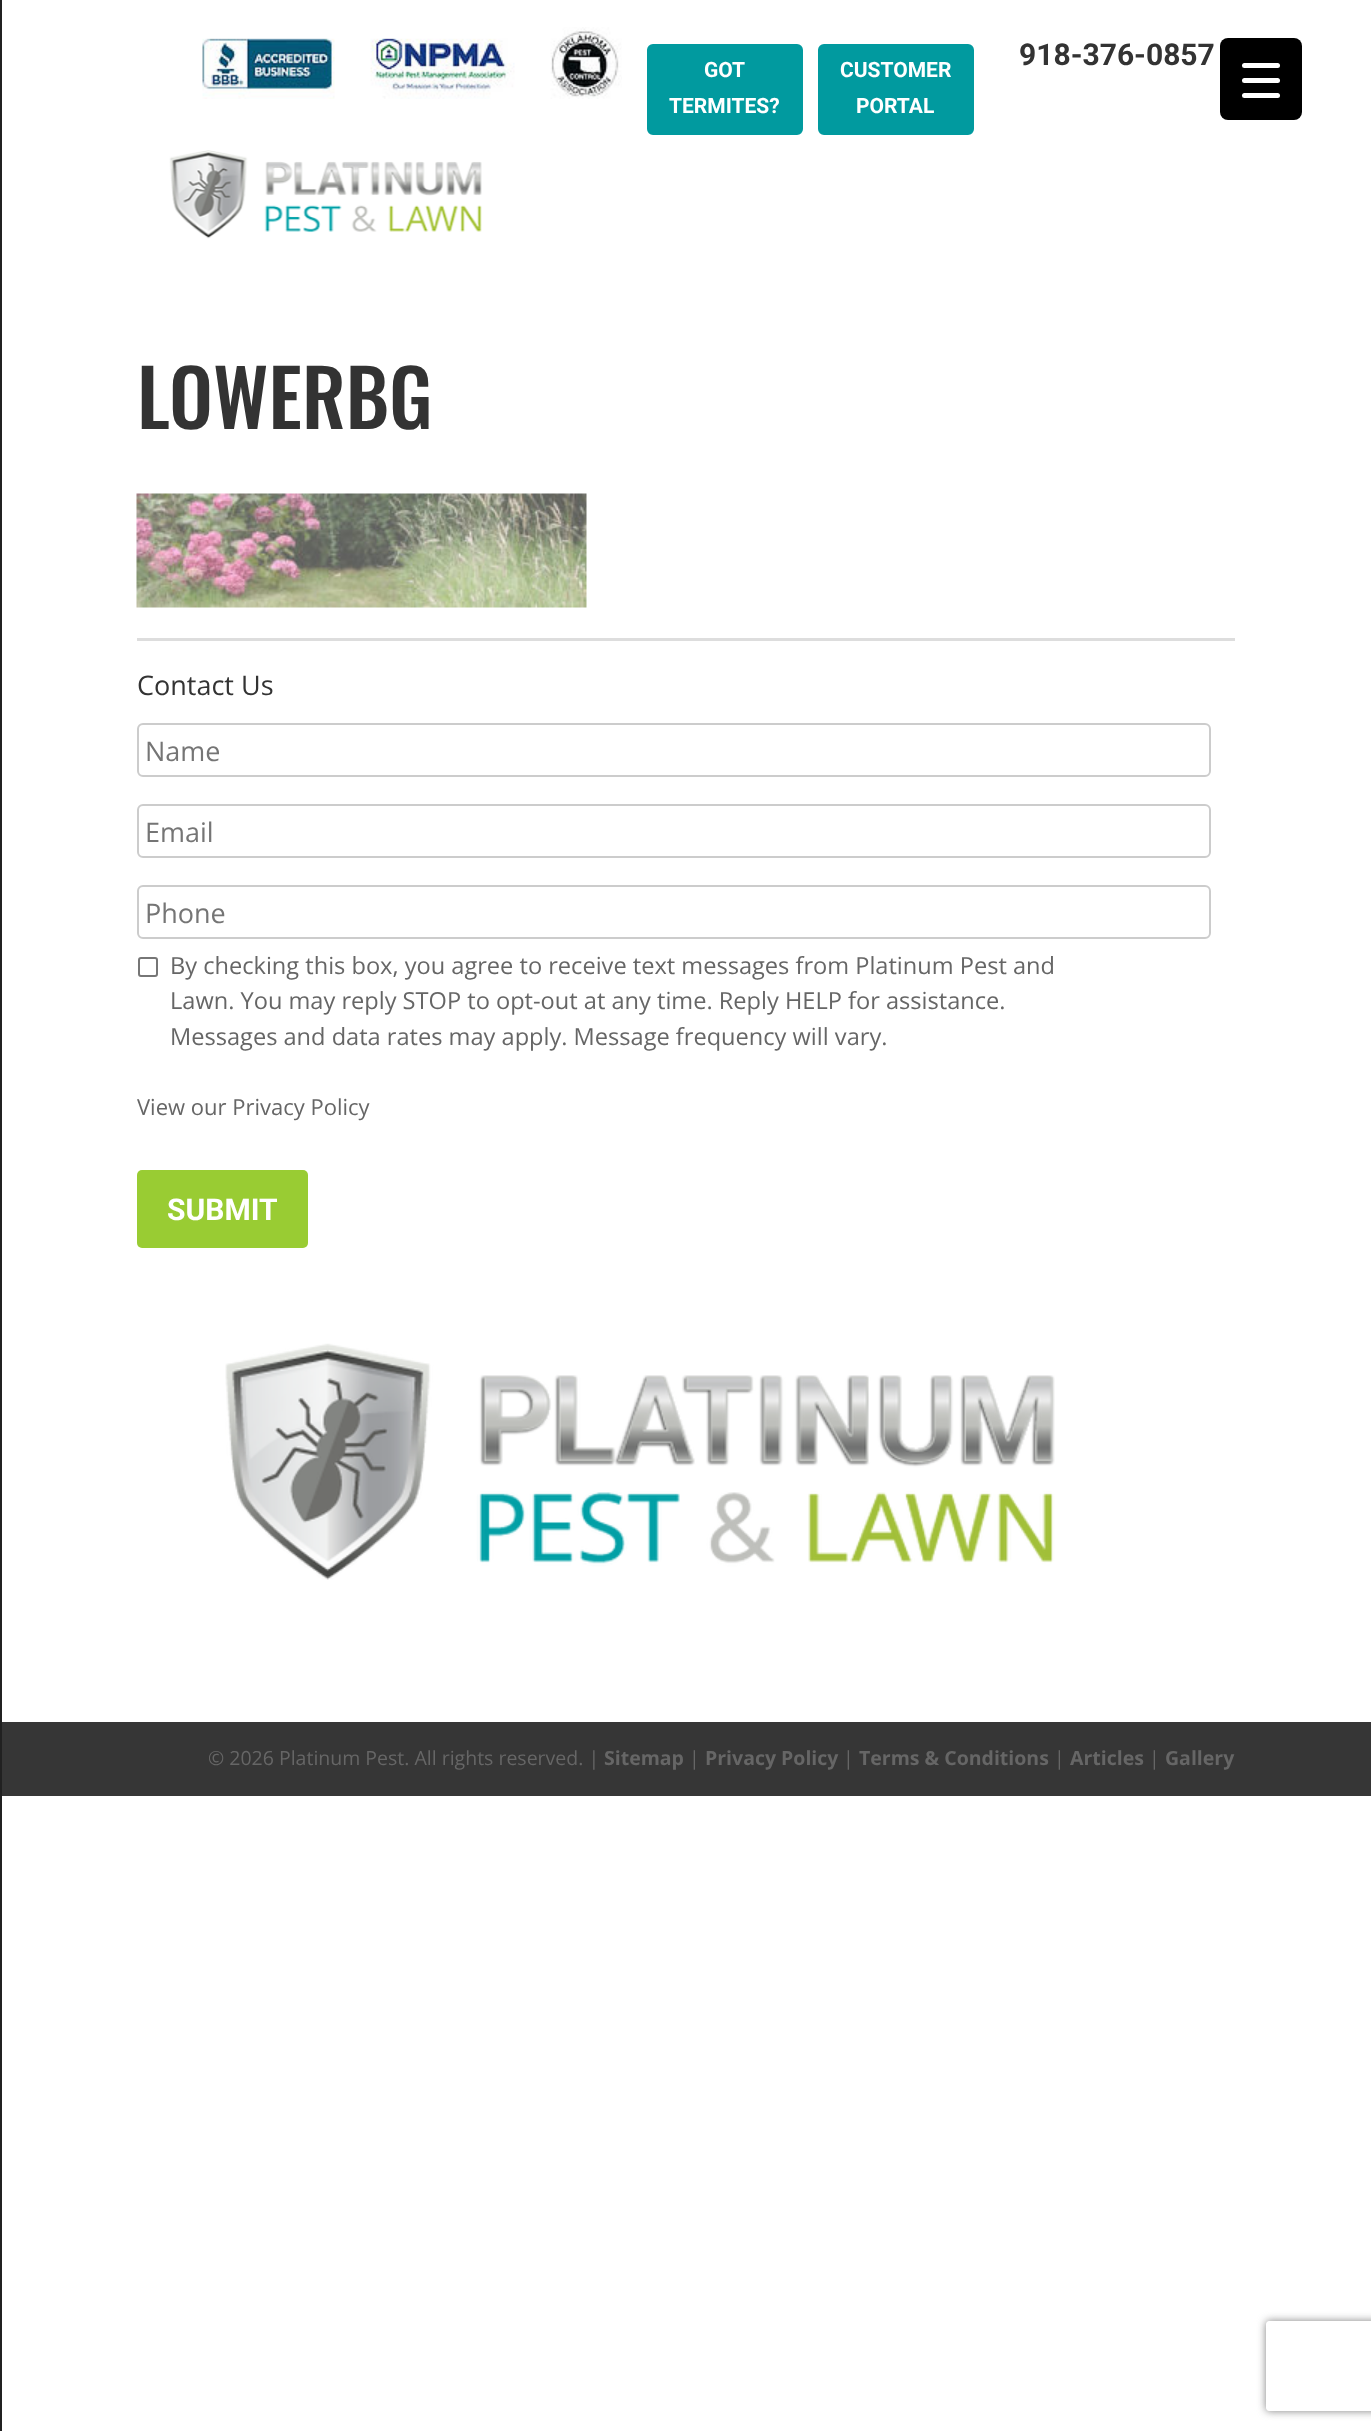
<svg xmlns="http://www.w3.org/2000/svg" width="1371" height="2431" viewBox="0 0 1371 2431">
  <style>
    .t1 { font: bold 30px Roboto; fill: #333; }
    .t2 { font: bold 21px Roboto; fill: #fff; }
    .t3 { font: 500 78px Oswald; fill: #333; }
    .t4 { font: 27px Open Sans; fill: #333; }
    .t5 { font: 27px Open Sans; fill: #757575; }
    .t6 { font: 23.6px Open Sans; fill: #666; }
    .t7 { font: 22px Open Sans; fill: #666; }
    .t8 { font: bold 30px Roboto; fill: #fff; }
    .t9 { font: 19.5px Open Sans; fill: #666; }
    .t10 { font: bold 19.5px Open Sans; fill: #666; }
  </style>
  <defs>
    <clipPath id="clip1"><path d="M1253 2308H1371V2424H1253ZM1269 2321H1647C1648.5 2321 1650 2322.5 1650 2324V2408C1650 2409.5 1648.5 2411 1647 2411H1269C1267.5 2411 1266 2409.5 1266 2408V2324C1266 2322.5 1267.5 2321 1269 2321Z" clip-rule="evenodd"/></clipPath>
  </defs>
  <rect width="100%" height="100%" fill="#fff"/>
  <rect x="0" y="0" width="2" height="2431" fill="#212121"/>
  <text x="1019" y="65" class="t1">918-376-0857</text>
  <image x="202" y="27" width="420" height="72" href="images/1.png"/>
  <rect x="648" y="45" width="154" height="89" rx="5" fill="#019a9f" stroke="#019a9f" stroke-width="2"/>
  <text x="704" y="77" class="t2">GOT</text>
  <text x="669" y="113" class="t2">TERMITES?</text>
  <rect x="819" y="45" width="154" height="89" rx="5" fill="#019a9f" stroke="#019a9f" stroke-width="2"/>
  <text x="840" y="77" class="t2">CUSTOMER</text>
  <text x="856" y="113" class="t2">PORTAL</text>
  <image x="169" y="150" width="313" height="89" href="images/2.png"/>
  <rect x="137" y="638" width="1098" height="3" fill="#ddd"/>
  <text x="137" y="429" class="t3">LOWERBG</text>
  <image x="136" y="493" width="451" height="115" href="images/3.png"/>
  <text x="137" y="695" class="t4">Contact Us</text>
  <rect x="138" y="724" width="1072" height="52" rx="5" fill="none" stroke="#ccc" stroke-width="2"/>
  <text x="145" y="761" class="t5">Name</text>
  <rect x="138" y="805" width="1072" height="52" rx="5" fill="none" stroke="#ccc" stroke-width="2"/>
  <text x="145" y="842" class="t5">Email</text>
  <rect x="138" y="886" width="1072" height="52" rx="5" fill="none" stroke="#ccc" stroke-width="2"/>
  <text x="145" y="923" class="t5">Phone</text>
  <rect x="139" y="958" width="18" height="18" rx="2" fill="none" stroke="#767676" stroke-width="2"/>
  <text x="170" y="974" class="t6">By checking this box, you agree to receive text messages from Platinum Pest and</text>
  <text x="170" y="1009" class="t6">Lawn. You may reply STOP to opt-out at any time. Reply HELP for assistance.</text>
  <text x="170" y="1045" class="t6">Messages and data rates may apply. Message frequency will vary.</text>
  <text x="137" y="1115" class="t7">View our Privacy Policy</text>
  <rect x="137" y="1170" width="171" height="78" rx="5" fill="#9c3"/>
  <text x="167" y="1220" class="t8">SUBMIT</text>
  <image x="225" y="1343" width="830" height="237" href="images/4.png"/>
  <rect x="2" y="1722" width="1369" height="74" fill="#363636"/>
  <text x="208" y="1765" class="t9">© 2026 Platinum Pest. All rights reserved. |</text>
  <text x="604" y="1765" class="t10">Sitemap</text>
  <text x="689" y="1765" class="t9">|</text>
  <text x="705" y="1765" class="t10">Privacy Policy</text>
  <text x="843" y="1765" class="t9">|</text>
  <text x="859" y="1765" class="t10">Terms &amp; Conditions</text>
  <text x="1054" y="1765" class="t9">|</text>
  <text x="1070" y="1765" class="t10">Articles</text>
  <text x="1149" y="1765" class="t9">|</text>
  <text x="1165" y="1765" class="t10">Gallery</text>
  <rect x="1220" y="38" width="82" height="82" rx="8" fill="#000"/>
  <rect x="1242" y="78" width="38" height="5" rx="2.5" fill="#fff"/>
  <rect x="1242" y="63" width="38" height="5" rx="2.5" fill="#fff"/>
  <rect x="1242" y="93" width="38" height="5" rx="2.5" fill="#fff"/>
  <g clip-path="url(#clip1)">
    <rect x="1266" y="2321" width="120" height="90" rx="3" fill="#808080" filter="blur(4px)"/>
  </g>
</svg>
